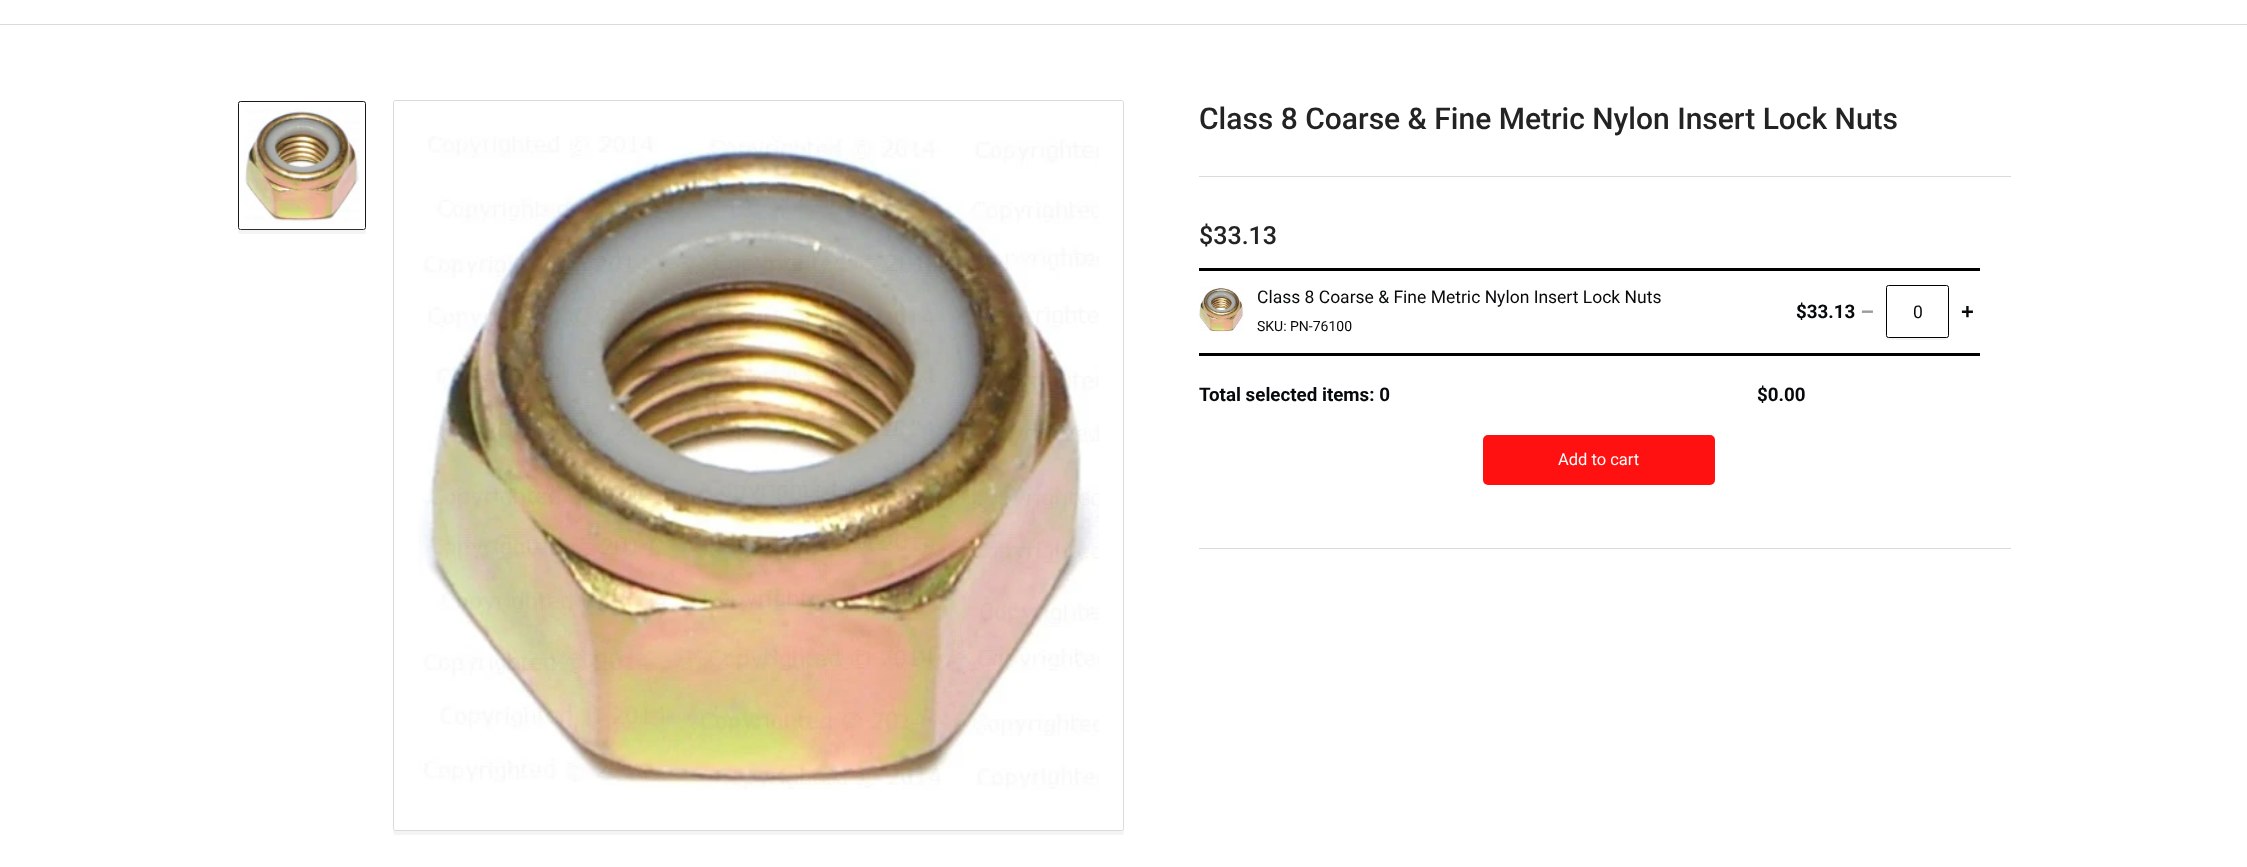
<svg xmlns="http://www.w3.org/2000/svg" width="2247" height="867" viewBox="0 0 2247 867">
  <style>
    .t1 { font: 500 30px Roboto; fill: #232323; }
    .t2 { font: 500 25px Roboto; fill: #232323; }
    .t3 { font: 17.5px Roboto; fill: #060a0a; }
    .t4 { font: 14px Roboto; fill: #060a0a; }
    .t5 { font: bold 18.75px Roboto; fill: #060a0a; }
    .t6 { font: bold 22px Liberation Sans; fill: #9b9d9d; }
    .t7 { font: bold 22px Liberation Sans; fill: #060a0a; }
    .t8 { font: 16.5px Roboto; fill: #fff; }
  </style>
  <defs>
    <linearGradient id="g1" gradientUnits="userSpaceOnUse" x1="302" y1="269" x2="302" y2="225"><stop offset="0" stop-color="#fff"/><stop offset="1" stop-color="#fff" stop-opacity="0"/></linearGradient>
  </defs>
  <rect width="100%" height="100%" fill="#fff"/>
  <rect x="0" y="24" width="2247" height="1" fill="#dadada"/>
  <path d="M238 229V232C238 233 239 234 240 234H364C365 234 366 233 366 232V229L364 230H240Z" fill="#f4f4f4"/>
  <rect x="238.5" y="101.5" width="127" height="128" rx="2" fill="none" stroke="#181616"/>
  <image x="244" y="108" width="116" height="116" href="images/1.png"/>
  <rect x="238" y="226" width="128" height="4" fill="url(#g1)"/>
  <path d="M393 830V832C393 834 394 835 396 835H1122C1123 835 1124 834 1124 832V105V829C1124 830 1123 831 1121 831H395C394 831 393 831 393 830Z" fill="#f4f4f4"/>
  <rect x="393.5" y="100.5" width="730" height="730" rx="2" fill="none" stroke="#dadada"/>
  <image x="418" y="136" width="681" height="654" href="images/2.png"/>
  <rect x="1199" y="176" width="812" height="1" fill="#dadada"/>
  <text x="1199" y="129" class="t1">Class 8 Coarse &amp; Fine Metric Nylon Insert Lock Nuts</text>
  <text x="1199" y="244" class="t2">$33.13</text>
  <rect x="1199" y="268" width="781" height="3" fill="#000"/>
  <rect x="1199" y="353" width="781" height="3" fill="#000"/>
  <image x="1199" y="287" width="45" height="45" href="images/3.png"/>
  <text x="1257" y="303" class="t3">Class 8 Coarse &amp; Fine Metric Nylon Insert Lock Nuts</text>
  <text x="1257" y="331" class="t4">SKU: PN-76100</text>
  <text x="1796" y="318" class="t5">$33.13</text>
  <text x="1861" y="319" class="t6">−</text>
  <path d="M1886 289V322C1886 341 1882 340 1898 340H1937C1953 340 1949 341 1949 322V289V335C1949 336 1948 338 1946 338H1889C1887 338 1886 336 1886 335Z" fill="#f4f4f4"/>
  <rect x="1886.5" y="285.5" width="62" height="52" rx="2" fill="#fff" stroke="#000"/>
  <text x="1913" y="318" class="t3">0</text>
  <text x="1961" y="319" class="t7">+</text>
  <text x="1199" y="401" class="t5">Total selected items: 0</text>
  <text x="1757" y="401" class="t5">$0.00</text>
  <rect x="1483" y="435" width="232" height="50" rx="5" fill="#f11"/>
  <text x="1558" y="465" class="t8">Add to cart</text>
  <rect x="1199" y="548" width="812" height="1" fill="#dadada"/>
</svg>
